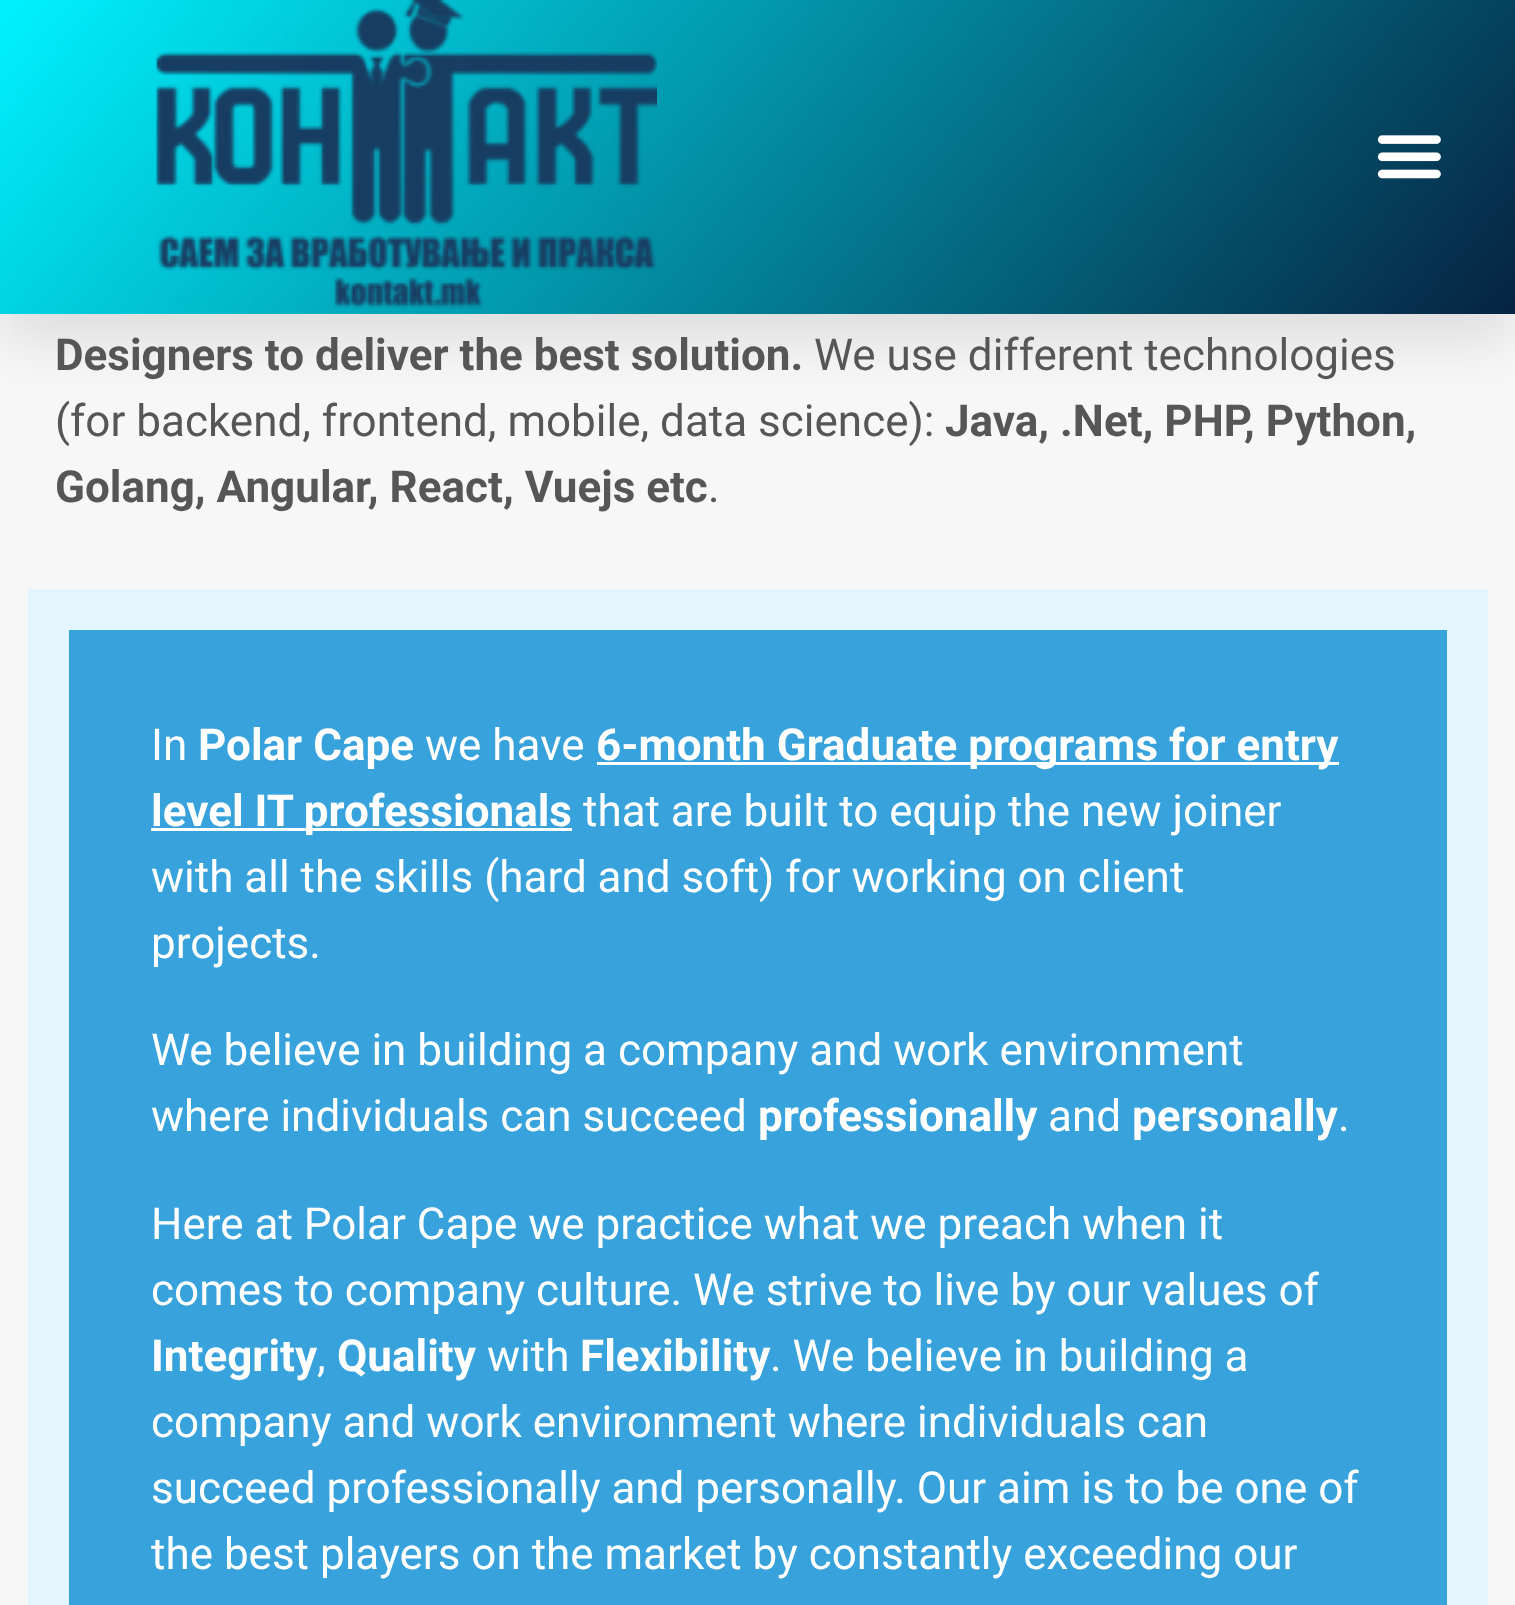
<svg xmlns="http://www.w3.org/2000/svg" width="1515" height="1605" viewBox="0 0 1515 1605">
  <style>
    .t1 { font: bold 44px Roboto; fill: #565656; }
    .t2 { font: 44px Roboto; fill: #565656; }
    .t3 { font: 44px Roboto; fill: #fff; }
    .t4 { font: bold 44px Roboto; fill: #fff; }
  </style>
  <defs>
    <linearGradient id="g1" gradientUnits="userSpaceOnUse" x1="236" y1="-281" x2="1279" y2="595"><stop offset="0" stop-color="#00f2ff"/><stop offset="1" stop-color="#062341"/></linearGradient>
  </defs>
  <rect width="100%" height="100%" fill="#f7f7f7"/>
  <rect x="0" y="28" width="1515" height="313" fill="#0000001a" filter="blur(27.5px)"/>
  <rect x="0" y="0" width="1515" height="314" fill="url(#g1)"/>
  <image x="156" y="0" width="501" height="309" href="images/1.png"/>
  <image x="1377" y="135" width="64" height="44" href="images/2.png"/>
  <text x="55" y="370" class="t1">Designers to deliver the best solution.</text>
  <text x="814" y="370" class="t2">We use different technologies</text>
  <text x="55" y="436" class="t2">(for backend, frontend, mobile, data science):</text>
  <text x="945" y="436" class="t1">Java, .Net, PHP, Python,</text>
  <text x="55" y="502" class="t1">Golang, Angular, React, Vuejs etc</text>
  <text x="708" y="502" class="t2">.</text>
  <rect x="48.5" y="609.5" width="1419" height="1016" fill="#37a2db" stroke="#e3f5ff" stroke-width="41"/>
  <text x="151" y="760" class="t3">In</text>
  <text x="198" y="760" class="t4">Polar Cape</text>
  <text x="425" y="760" class="t3">we have</text>
  <rect x="597" y="762" width="742" height="3" fill="#fff"/>
  <text x="596" y="760" class="t4">6-month Graduate programs for entry</text>
  <rect x="151" y="828" width="421" height="3" fill="#fff"/>
  <text x="151" y="826" class="t4">level IT professionals</text>
  <text x="583" y="826" class="t3">that are built to equip the new joiner</text>
  <text x="151" y="892" class="t3">with all the skills (hard and soft) for working on client</text>
  <text x="151" y="958" class="t3">projects.</text>
  <text x="151" y="1065" class="t3">We believe in building a company and work environment</text>
  <text x="151" y="1131" class="t3">where individuals can succeed</text>
  <text x="758" y="1131" class="t4">professionally</text>
  <text x="1048" y="1131" class="t3">and</text>
  <text x="1132" y="1131" class="t4">personally</text>
  <text x="1338" y="1131" class="t3">.</text>
  <text x="151" y="1239" class="t3">Here at Polar Cape we practice what we preach when it</text>
  <text x="151" y="1305" class="t3">comes to company culture. We strive to live by our values of</text>
  <text x="151" y="1371" class="t4">Integrity</text>
  <text x="317" y="1371" class="t3">,</text>
  <text x="337" y="1371" class="t4">Quality</text>
  <text x="487" y="1371" class="t3">with</text>
  <text x="580" y="1371" class="t4">Flexibility</text>
  <text x="770" y="1371" class="t3">. We believe in building a</text>
  <text x="151" y="1437" class="t3">company and work environment where individuals can</text>
  <text x="151" y="1503" class="t3">succeed professionally and personally. Our aim is to be one of</text>
  <text x="151" y="1569" class="t3">the best players on the market by constantly exceeding our</text>
</svg>
